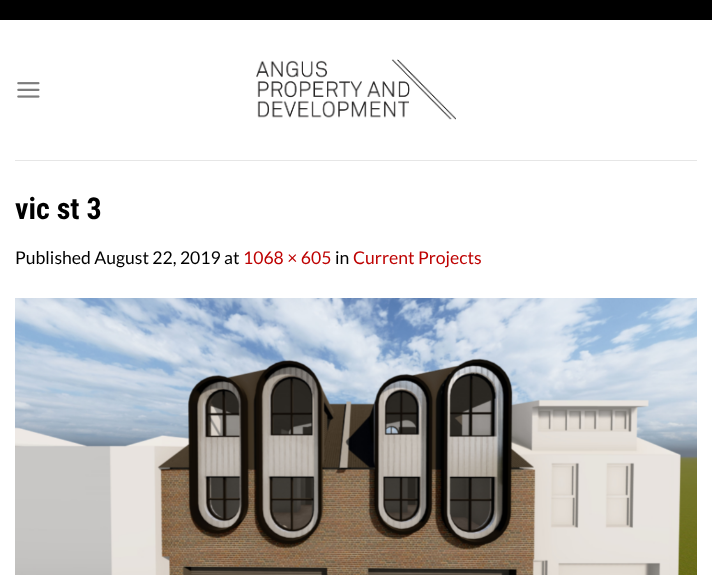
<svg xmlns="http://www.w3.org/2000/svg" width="712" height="575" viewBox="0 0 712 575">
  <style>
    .t1 { font: bold 30px Roboto Condensed; fill: #000; }
    .t2 { font: 17.6px Lato; fill: #000; }
    .t3 { font: 17.6px Lato; fill: #be0202; }
  </style>
  <rect width="100%" height="100%" fill="#fff"/>
  <rect x="0" y="0" width="712" height="20" fill="#000"/>
  <image x="17" y="82" width="23" height="16" href="images/1.png"/>
  <image x="256" y="59" width="200" height="61" href="images/2.png"/>
  <rect x="15" y="160" width="682" height="1" fill="#e6e6e6"/>
  <text x="15" y="219" class="t1">vic st 3</text>
  <text x="15" y="264" class="t2">Published August 22, 2019 at</text>
  <text x="243" y="264" class="t3">1068 × 605</text>
  <text x="335" y="264" class="t2">in</text>
  <text x="353" y="264" class="t3">Current Projects</text>
  <image x="15" y="298" width="682" height="277" href="images/3.png"/>
</svg>
